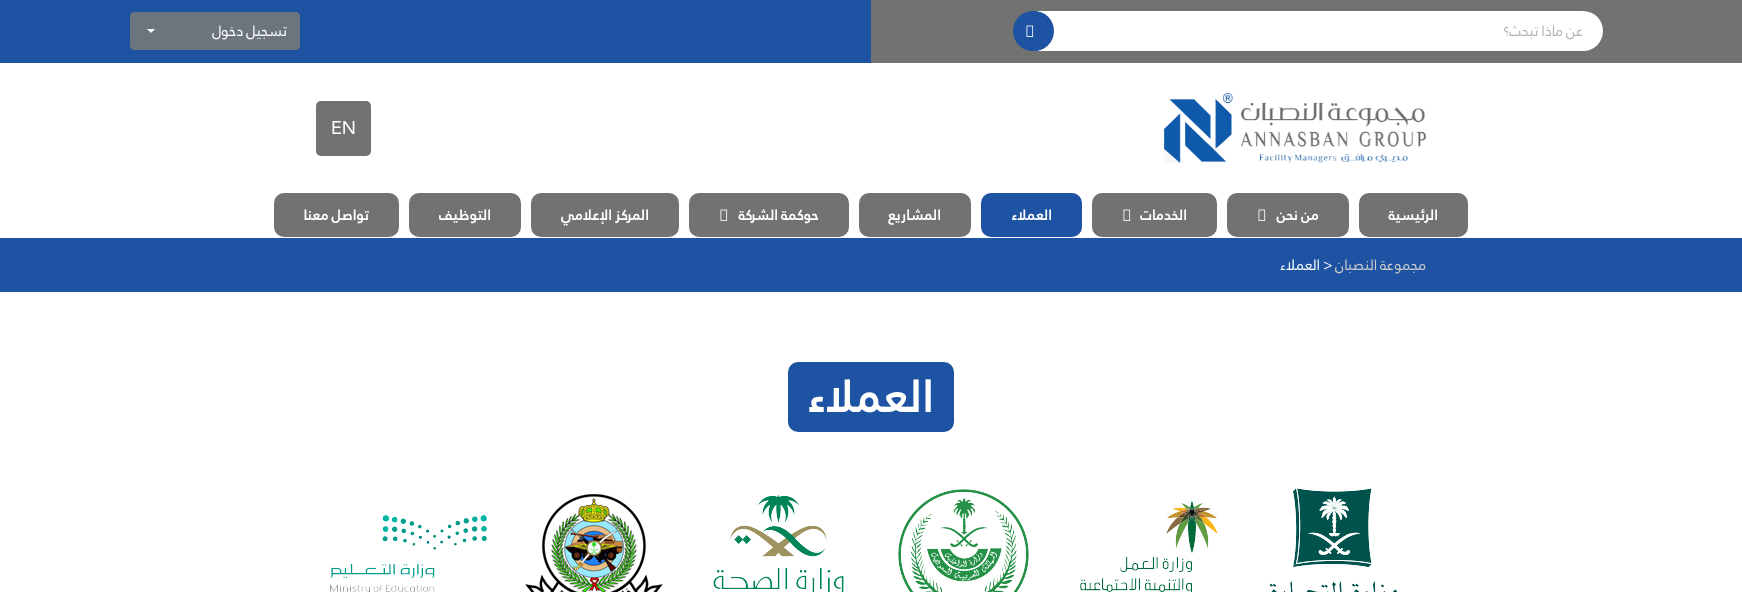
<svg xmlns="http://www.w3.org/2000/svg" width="1742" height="592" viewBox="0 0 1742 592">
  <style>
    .t1 { font: 16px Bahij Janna; direction: rtl; fill: #b4b4b4; }
    .t2 { font: 16px Bahij Janna; direction: rtl; fill: #fff; }
    .t3 { font: 20px Bahij Janna; fill: #fff; }
    .t4 { font: bold 16px Bahij Janna; direction: rtl; fill: #fff; }
    .t5 { font: 16px Bahij Janna; direction: rtl; fill: #cbcbcb; }
    .t6 { font: 16px Bahij Janna; fill: #fff; }
    .t7 { font: bold 50px Bahij Janna; direction: rtl; fill: #fff; }
  </style>
  <rect width="100%" height="100%" fill="#fff"/>
  <rect x="0" y="0" width="871" height="63" fill="#1e52a3"/>
  <rect x="871" y="0" width="871" height="63" fill="#727271"/>
  <rect x="1015" y="11" width="588" height="40" rx="20" fill="#fff"/>
  <text x="1583" y="36" class="t1">عن ماذا تبحث؟</text>
  <circle cx="1034" cy="31" r="20" fill="#1e52a3"/>
  <circle cx="1033" cy="31" r="20" fill="#1e52a3"/>
  <image x="1026" y="25" width="8" height="12" href="images/1.png"/>
  <rect x="130.5" y="12.5" width="169" height="37" rx="3.5" fill="#6c757d" stroke="#6c757d"/>
  <text x="287" y="36" class="t2">تسجيل دخول</text>
  <path d="M147 29H155L151 33Z" fill="#fff"/>
  <image x="1164" y="93" width="262" height="70" href="images/2.png"/>
  <rect x="316" y="101" width="55" height="55" rx="5" fill="#727271"/>
  <text x="331" y="134" class="t3">EN</text>
  <rect x="1359" y="193" width="109" height="44" rx="10" fill="#727271"/>
  <text x="1438" y="220" class="t4">الرئيسية</text>
  <rect x="1227" y="193" width="122" height="44" rx="10" fill="#727271"/>
  <text x="1319" y="220" class="t4">من نحن</text>
  <image x="1258" y="209" width="8" height="12" href="images/3.png"/>
  <rect x="1092" y="193" width="125" height="44" rx="10" fill="#727271"/>
  <text x="1187" y="220" class="t4">الخدمات</text>
  <image x="1123" y="209" width="8" height="12" href="images/3.png"/>
  <rect x="981" y="193" width="101" height="44" rx="10" fill="#1e52a3"/>
  <text x="1052" y="220" class="t4">العملاء</text>
  <rect x="859" y="193" width="112" height="44" rx="10" fill="#727271"/>
  <text x="941" y="220" class="t4">المشاريع</text>
  <rect x="689" y="193" width="160" height="44" rx="10" fill="#727271"/>
  <text x="819" y="220" class="t4">حوكمة الشركة</text>
  <image x="720" y="209" width="8" height="12" href="images/3.png"/>
  <rect x="531" y="193" width="148" height="44" rx="10" fill="#727271"/>
  <text x="649" y="220" class="t4">المركز الإعلامي</text>
  <rect x="409" y="193" width="112" height="44" rx="10" fill="#727271"/>
  <text x="491" y="220" class="t4">التوظيف</text>
  <rect x="274" y="193" width="125" height="44" rx="10" fill="#727271"/>
  <text x="369" y="220" class="t4">تواصل معنا</text>
  <rect x="0" y="238" width="1742" height="54" fill="#1e52a3"/>
  <text x="1426" y="270" class="t5">مجموعة النصبان</text>
  <text x="1323" y="270" class="t6">&gt;</text>
  <text x="1320" y="270" class="t2">العملاء</text>
  <rect x="788" y="362" width="166" height="70" rx="10" fill="#1e52a3"/>
  <text x="934" y="412" class="t7">العملاء</text>
  <image x="1269" y="488" width="128" height="104" href="images/4.png"/>
  <image x="1080" y="500" width="138" height="92" href="images/5.png"/>
  <image x="898" y="489" width="131" height="103" href="images/6.png"/>
  <image x="713" y="494" width="131" height="98" href="images/7.png"/>
  <image x="525" y="494" width="138" height="98" href="images/8.png"/>
  <image x="330" y="515" width="157" height="77" href="images/9.png"/>
</svg>
